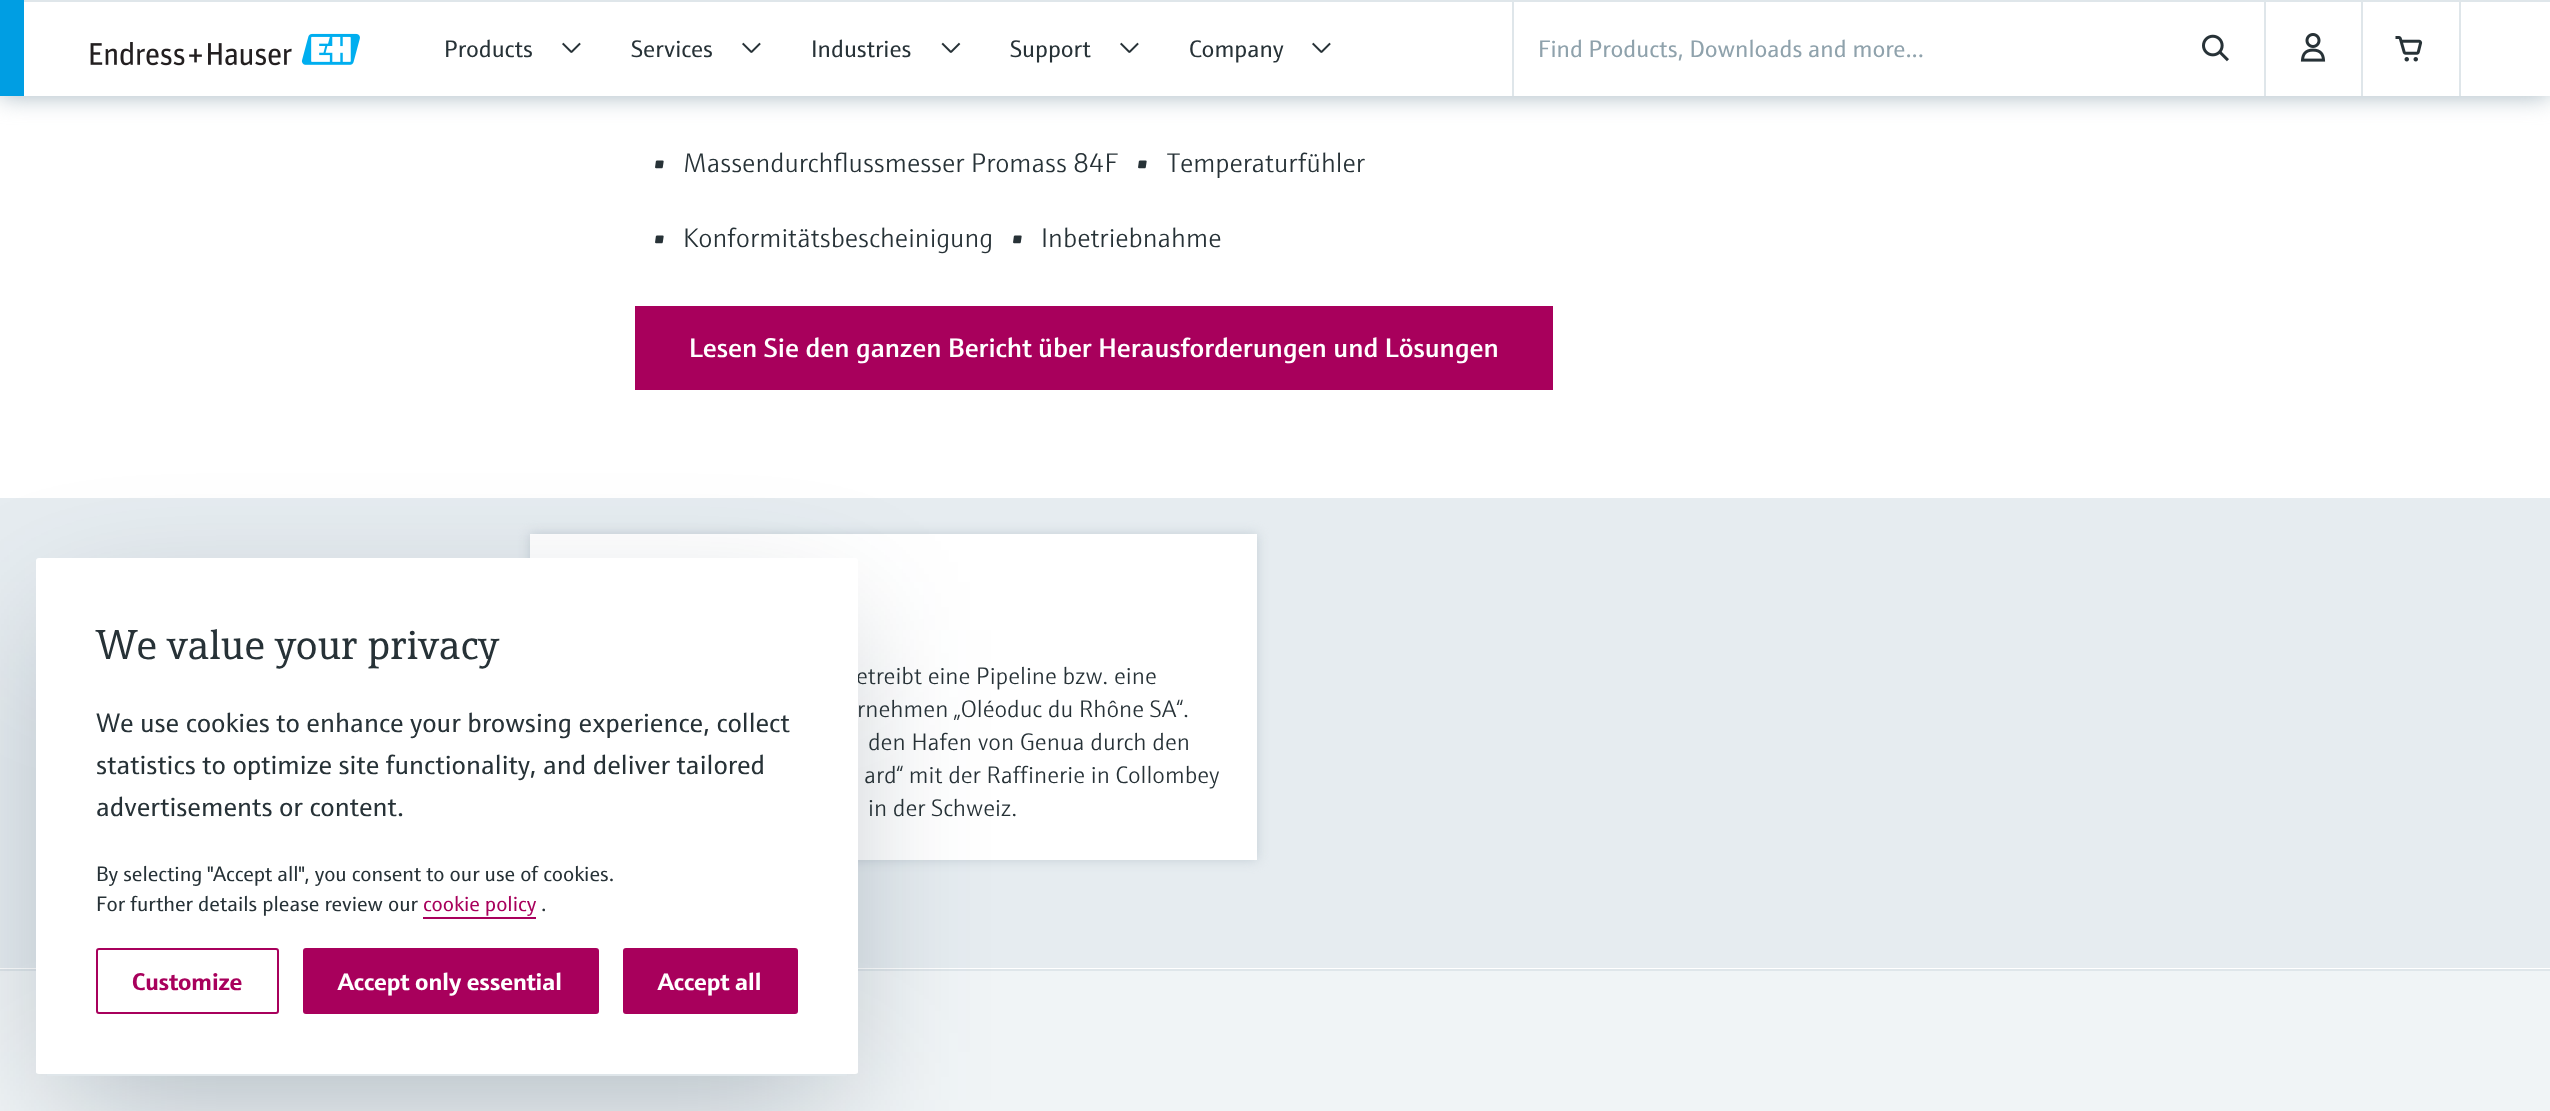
<svg xmlns="http://www.w3.org/2000/svg" width="2550" height="1111" viewBox="0 0 2550 1111">
  <style>
    .t1 { font: 300 24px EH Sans; fill: #273237; }
    .t2 { font: 42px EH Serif; fill: #273237; }
    .t3 { font: 27px EH Sans; fill: #273237; }
    .t4 { font: 21px EH Sans; fill: #273237; }
    .t5 { font: 21px EH Sans; fill: #a8005c; }
    .t6 { font: bold 24px EH Sans; fill: #a8005c; }
    .t7 { font: bold 24px EH Sans; fill: #fff; }
    .t8 { font: 24px EH Sans; fill: #273237; }
    .t9 { font: 24px EH Sans; fill: #8fa2ac; }
    .t10 { font: 300 22px EH Sans; fill: #273237; }
    .t11 { font: 300 27px EH Sans; fill: #273237; }
    .t12 { font: 600 27px EH Sans; fill: #fff; }
  </style>
  <rect width="100%" height="100%" fill="#fff"/>
  <rect x="0" y="498" width="2550" height="470" fill="#e6ecf0"/>
  <rect x="530" y="534" width="727" height="326" fill="#c3ced5" filter="blur(6px)"/>
  <rect x="530" y="534" width="727" height="326" fill="#fff"/>
  <rect x="0" y="971" width="2550" height="140" fill="#f0f4f6"/>
  <rect x="0" y="969" width="2550" height="2" fill="#dfe6ea"/>
  <rect x="60" y="630" width="774" height="470" fill="#1933454d" filter="blur(72px)"/>
  <text x="856" y="684" class="t1">etreibt eine Pipeline bzw. eine</text>
  <path d="M39 558H855C857 558 858 559 858 561V1072C858 1073 857 1074 855 1074H39C37 1074 36 1073 36 1072V561C36 559 37 558 39 558Z" fill="#fff"/>
  <rect x="47" y="1074" width="800" height="2" fill="#dfe6ea"/>
  <text x="96" y="659" class="t2">We value your privacy</text>
  <text x="96" y="732" class="t3">We use cookies to enhance your browsing experience, collect</text>
  <text x="96" y="774" class="t3">statistics to optimize site functionality, and deliver tailored</text>
  <text x="96" y="816" class="t3">advertisements or content.</text>
  <text x="96" y="881" class="t4">By selecting "Accept all", you consent to our use of cookies.</text>
  <text x="96" y="911" class="t4">For further details please review our</text>
  <text x="423" y="911" class="t5">cookie policy</text>
  <rect x="423" y="917" width="113" height="2" fill="#a8005c"/>
  <text x="541" y="911" class="t4">.</text>
  <rect x="97" y="949" width="181" height="64" rx="2" fill="none" stroke="#a8005c" stroke-width="2"/>
  <text x="132" y="990" class="t6">Customize</text>
  <rect x="303" y="948" width="296" height="66" rx="3" fill="#a8005c"/>
  <text x="338" y="990" class="t7">Accept only essential</text>
  <rect x="623" y="948" width="175" height="66" rx="3" fill="#a8005c"/>
  <text x="658" y="990" class="t7">Accept all</text>
  <rect x="0" y="0" width="2550" height="96" fill="#a5b6c0" filter="blur(12px)"/>
  <rect x="24" y="2" width="2526" height="94" fill="#fff"/>
  <rect x="0" y="0" width="24" height="96" fill="#009ee3"/>
  <rect x="1512" y="0" width="2" height="96" fill="#dfe6ea"/>
  <rect x="2264" y="0" width="2" height="96" fill="#dfe6ea"/>
  <rect x="2361" y="0" width="2" height="96" fill="#dfe6ea"/>
  <rect x="2459" y="0" width="2" height="96" fill="#dfe6ea"/>
  <rect x="24" y="0" width="2526" height="2" fill="#dfe6ea"/>
  <image x="90" y="33" width="270" height="33" href="images/1.png"/>
  <text x="444" y="57" class="t8">Products</text>
  <image x="562" y="42" width="19" height="11" href="images/2.png"/>
  <text x="631" y="57" class="t8">Services</text>
  <image x="742" y="42" width="19" height="11" href="images/2.png"/>
  <text x="811" y="57" class="t8">Industries</text>
  <image x="941" y="42" width="20" height="11" href="images/3.png"/>
  <text x="1010" y="57" class="t8">Support</text>
  <image x="1120" y="42" width="19" height="11" href="images/2.png"/>
  <text x="1189" y="57" class="t8">Company</text>
  <image x="1312" y="42" width="19" height="11" href="images/2.png"/>
  <text x="1538" y="57" class="t9">Find Products, Downloads and more...</text>
  <image x="2202" y="34" width="27" height="28" href="images/4.png"/>
  <image x="2300" y="33" width="26" height="29" href="images/5.png"/>
  <image x="2395" y="36" width="28" height="26" href="images/6.png"/>
  <text x="653" y="171" class="t10">•</text>
  <text x="683" y="172" class="t11">Massendurchflussmesser Promass 84F</text>
  <text x="1136" y="171" class="t10">•</text>
  <text x="1166" y="172" class="t11">Temperaturfühler</text>
  <text x="653" y="246" class="t10">•</text>
  <text x="683" y="247" class="t11">Konformitätsbescheinigung</text>
  <text x="1011" y="246" class="t10">•</text>
  <text x="1041" y="247" class="t11">Inbetriebnahme</text>
  <rect x="635" y="306" width="918" height="84" fill="#a8005c"/>
  <text x="689" y="357" class="t12">Lesen Sie den ganzen Bericht über Herausforderungen und Lösungen</text>
  <text x="857" y="717" class="t1">rnehmen „Oléoduc du Rhône SA“.</text>
  <text x="868" y="750" class="t1">den Hafen von Genua durch den</text>
  <text x="864" y="783" class="t1">ard“ mit der Raffinerie in Collombey</text>
  <text x="868" y="816" class="t1">in der Schweiz.</text>
</svg>
